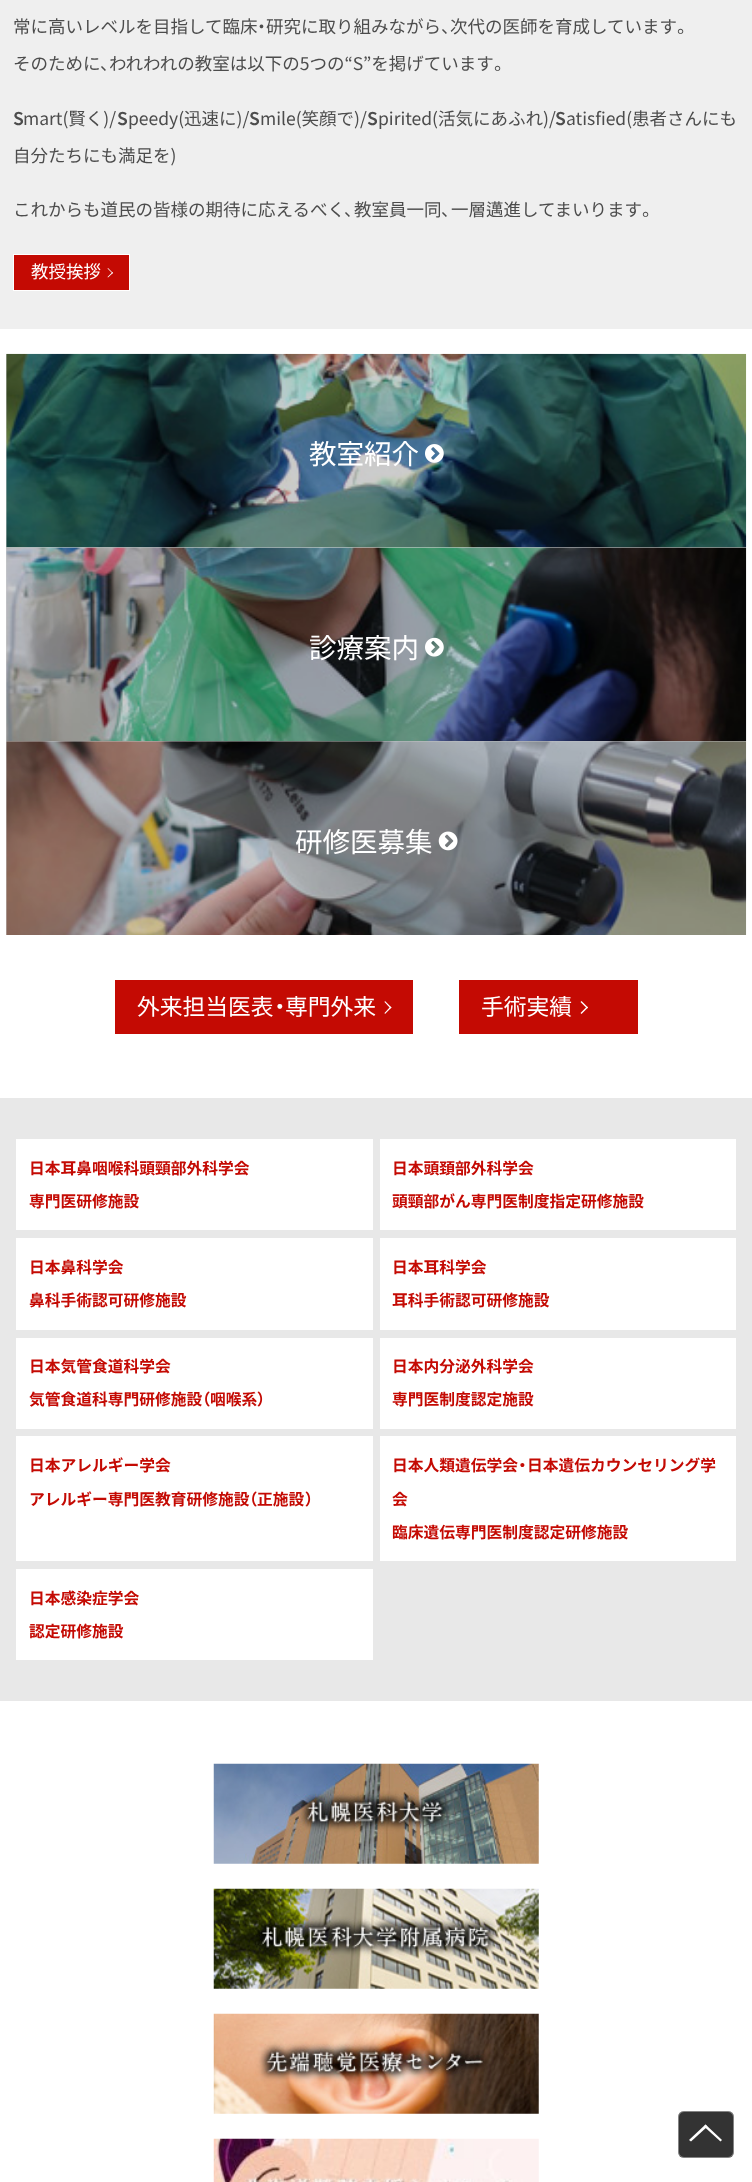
<svg xmlns="http://www.w3.org/2000/svg" width="752" height="2182" viewBox="0 0 752 2182">
  <style>
    .t1 { font: 17.5px Noto Sans JP; fill: #4c4c4c; }
    .t2 { font: 17.5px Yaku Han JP; fill: #4c4c4c; }
    .t3 { font: 600 17.5px Noto Sans JP; fill: #4c4c4c; }
    .t4 { font: 17.5px Noto Sans JP; fill: #fff; }
    .t5 { font: 27.5px Noto Sans JP; fill: #fff; }
    .t6 { font: 22.75px Noto Sans JP; fill: #fff; }
    .t7 { font: 22.75px Yaku Han JP; fill: #fff; }
    .t8 { font: bold 15.75px Noto Sans JP; fill: #c40a03; }
    .t9 { font: bold 15.75px Yaku Han JP; fill: #c40a03; }
  </style>
  <rect width="100%" height="100%" fill="#fff"/>
  <rect x="6" y="548" width="1" height="193" fill="#ccc"/>
  <rect x="6" y="354" width="740" height="194" fill="#ccc"/>
  <rect x="0" y="0" width="752" height="329" fill="#efefef"/>
  <text x="13" y="33" class="t1">常に高いレベルを目指して臨床</text>
  <text x="257" y="33" class="t2">・</text>
  <text x="266" y="33" class="t1">研究に取り組みながら</text>
  <text x="450" y="33" class="t1">次代の医師を育成しています</text>
  <text x="441" y="33" class="t2">、</text>
  <text x="677" y="33" class="t2">。</text>
  <text x="13" y="70" class="t1">そのために</text>
  <text x="100" y="70" class="t2">、</text>
  <text x="109" y="70" class="t1">われわれの教室は以下の5つの“S”を掲げています</text>
  <text x="494" y="70" class="t2">。</text>
  <text x="13" y="125" class="t3">S</text>
  <text x="23" y="125" class="t1">mart(賢く)/</text>
  <text x="117" y="125" class="t3">S</text>
  <text x="128" y="125" class="t1">peedy(迅速に)/</text>
  <text x="249" y="125" class="t3">S</text>
  <text x="260" y="125" class="t1">mile(笑顔で)/</text>
  <text x="367" y="125" class="t3">S</text>
  <text x="378" y="125" class="t1">pirited(活気にあふれ)/</text>
  <text x="555" y="125" class="t3">S</text>
  <text x="566" y="125" class="t1">atisfied(患者さんにも</text>
  <text x="13" y="162" class="t1">自分たちにも満足を)</text>
  <text x="13" y="216" class="t1">これからも道民の皆様の期待に応えるべく</text>
  <text x="344" y="216" class="t2">、</text>
  <text x="354" y="216" class="t1">教室員一同</text>
  <text x="441" y="216" class="t2">、</text>
  <text x="451" y="216" class="t1">一層邁進してまいります</text>
  <text x="642" y="216" class="t2">。</text>
  <rect x="13.5" y="254.5" width="116" height="36" fill="#c40a03" stroke="#fff"/>
  <text x="31" y="278" class="t4">教授挨拶</text>
  <path d="M108 268L113 273L112.5 273.5L107.5 268.5Z" fill="#fff"/>
  <path d="M112.5 272L113 273L108 277.5L107.5 277Z" fill="#fff"/>
  <image x="6" y="353" width="741" height="195" href="images/1.png"/>
  <text x="309" y="464" class="t5">教室紹介</text>
  <image x="425" y="444" width="19" height="19" href="images/2.png"/>
  <image x="6" y="547" width="741" height="195" href="images/3.png"/>
  <text x="309" y="658" class="t5">診療案内</text>
  <image x="425" y="637" width="19" height="20" href="images/4.png"/>
  <image x="6" y="741" width="741" height="194" href="images/5.png"/>
  <rect x="6" y="741" width="740" height="194" fill="#00000033"/>
  <text x="295" y="852" class="t5">研修医募集</text>
  <image x="438" y="831" width="20" height="20" href="images/6.png"/>
  <rect x="115" y="980" width="298" height="54" fill="#c40a03"/>
  <text x="137" y="1015" class="t6">外来担当医表</text>
  <text x="274" y="1015" class="t7">・</text>
  <text x="285" y="1015" class="t6">専門外来</text>
  <path d="M385 1001L391.5 1007.5L390.5 1008.5L384.5 1002Z" fill="#fff"/>
  <path d="M390.5 1006.5L391.5 1007.5L385 1014L384.5 1013Z" fill="#fff"/>
  <rect x="459" y="980" width="179" height="54" fill="#c40a03"/>
  <text x="481" y="1015" class="t6">手術実績</text>
  <path d="M581.5 1001L588 1007.5L587 1008.5L580.5 1002Z" fill="#fff"/>
  <path d="M587 1006.5L588 1007.5L581.5 1014L580.5 1013Z" fill="#fff"/>
  <rect x="0" y="1098" width="752" height="603" fill="#e8e8e8"/>
  <rect x="16" y="1139" width="357" height="91" fill="#fff"/>
  <text x="29" y="1174" class="t8">日本耳鼻咽喉科頭頸部外科学会</text>
  <text x="29" y="1207" class="t8">専門医研修施設</text>
  <rect x="380" y="1139" width="356" height="91" fill="#fff"/>
  <text x="392" y="1174" class="t8">日本頭頚部外科学会</text>
  <text x="392" y="1207" class="t8">頭頸部がん専門医制度指定研修施設</text>
  <rect x="16" y="1238" width="357" height="92" fill="#fff"/>
  <text x="29" y="1273" class="t8">日本鼻科学会</text>
  <text x="29" y="1306" class="t8">鼻科手術認可研修施設</text>
  <rect x="380" y="1238" width="356" height="92" fill="#fff"/>
  <text x="392" y="1273" class="t8">日本耳科学会</text>
  <text x="392" y="1306" class="t8">耳科手術認可研修施設</text>
  <rect x="16" y="1338" width="357" height="91" fill="#fff"/>
  <text x="29" y="1372" class="t8">日本気管食道科学会</text>
  <text x="29" y="1405" class="t8">気管食道科専門研修施設</text>
  <text x="202" y="1405" class="t9">（</text>
  <text x="210" y="1405" class="t8">咽喉系</text>
  <text x="257" y="1405" class="t9">）</text>
  <rect x="380" y="1338" width="356" height="91" fill="#fff"/>
  <text x="392" y="1372" class="t8">日本内分泌外科学会</text>
  <text x="392" y="1405" class="t8">専門医制度認定施設</text>
  <rect x="16" y="1436" width="357" height="125" fill="#fff"/>
  <text x="29" y="1471" class="t8">日本アレルギー学会</text>
  <text x="29" y="1505" class="t8">アレルギー専門医教育研修施設</text>
  <text x="249" y="1505" class="t9">（</text>
  <text x="257" y="1505" class="t8">正施設</text>
  <text x="305" y="1505" class="t9">）</text>
  <rect x="380" y="1436" width="356" height="125" fill="#fff"/>
  <text x="392" y="1471" class="t8">日本人類遺伝学会</text>
  <text x="518" y="1471" class="t9">・</text>
  <text x="527" y="1471" class="t8">日本遺伝カウンセリング学</text>
  <text x="392" y="1505" class="t8">会</text>
  <text x="392" y="1538" class="t8">臨床遺伝専門医制度認定研修施設</text>
  <rect x="16" y="1569" width="357" height="91" fill="#fff"/>
  <text x="29" y="1604" class="t8">日本感染症学会</text>
  <text x="29" y="1637" class="t8">認定研修施設</text>
  <image x="213" y="1763" width="326" height="101" href="images/7.png"/>
  <image x="213" y="1888" width="326" height="101" href="images/8.png"/>
  <image x="213" y="2013" width="326" height="101" href="images/9.png"/>
  <image x="213" y="2138" width="326" height="44" href="images/10.png"/>
  <rect x="678" y="2111" width="56" height="47" rx="6" fill="#333"/>
  <rect x="678.5" y="2111.5" width="55" height="46" rx="5.5" fill="none" stroke="#ffffff66"/>
  <path d="M689 2140L705.5 2124.5L707.5 2126.5L691 2141.5Z" fill="#fff"/>
  <path d="M704 2126.5L705.5 2124.5L722 2140L720.5 2141.5Z" fill="#fff"/>
</svg>
